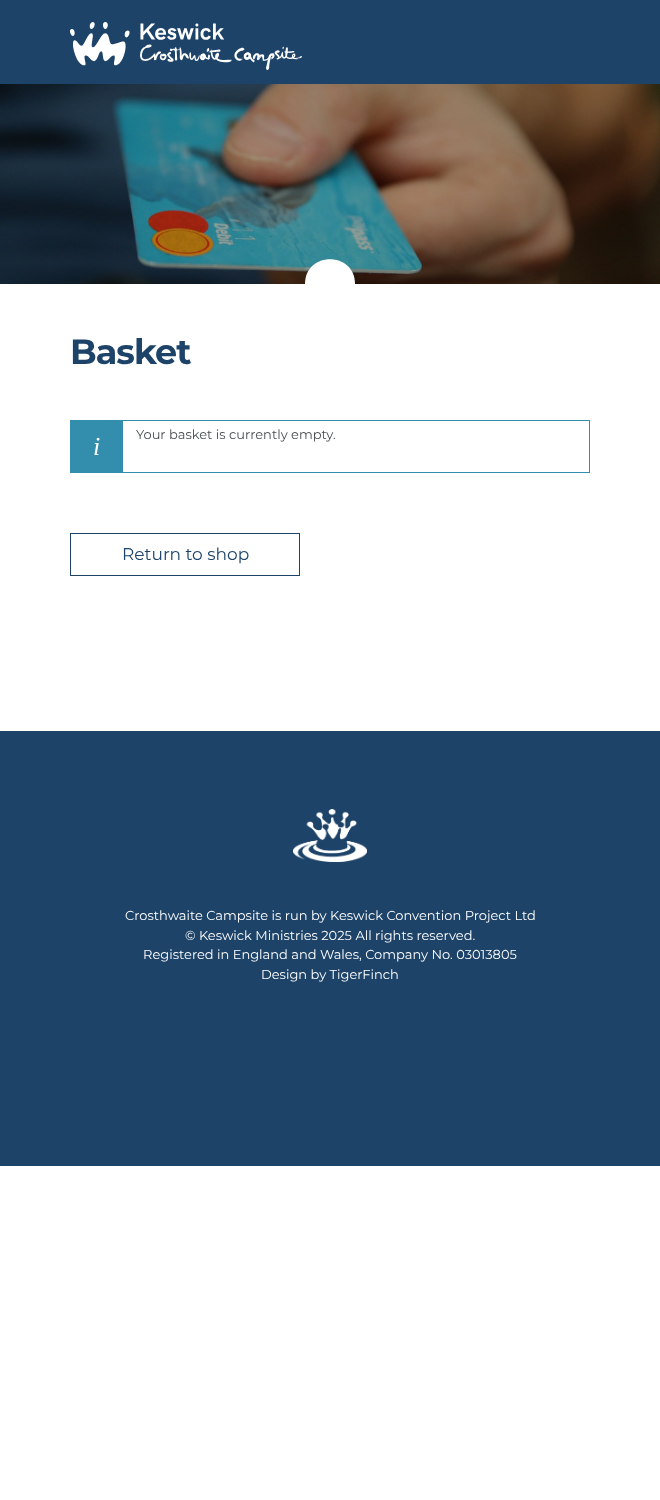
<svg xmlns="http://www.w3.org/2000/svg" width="660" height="1500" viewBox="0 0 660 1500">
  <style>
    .t1 { font: bold 35px Montserrat; letter-spacing: -1px; fill: #1d4369; }
    .t2 { font: 13px Montserrat; fill: #494f51; }
    .t3 { font: italic 26px Liberation Serif; fill: #fff; }
    .t4 { font: 17px Montserrat; fill: #1d4369; }
    .t5 { font: 13px Montserrat; fill: #fff; }
  </style>
  <rect width="100%" height="100%" fill="#fff"/>
  <rect x="0" y="0" width="660" height="84" fill="#1d4369"/>
  <image x="70" y="22" width="232" height="48" href="images/1.png"/>
  <image x="0" y="84" width="660" height="200" href="images/2.png"/>
  <path d="M355 284C355 317 305 317 305 284C305 251 355 251 355 284Z" fill="#fff"/>
  <text x="70" y="364" class="t1">Basket</text>
  <rect x="70.5" y="420.5" width="519" height="52" fill="none" stroke="#338dad"/>
  <text x="136" y="439" class="t2">Your basket is currently empty.</text>
  <rect x="71" y="421" width="52" height="51" fill="#338dad"/>
  <text x="93" y="455" class="t3">i</text>
  <rect x="70.5" y="533.5" width="229" height="42" fill="none" stroke="#1d4369"/>
  <text x="122" y="560" class="t4">Return to shop</text>
  <rect x="0" y="731" width="660" height="435" fill="#1d4369"/>
  <image x="293" y="809" width="74" height="53" href="images/3.png"/>
  <text x="125" y="920" class="t5">Crosthwaite Campsite is run by Keswick Convention Project Ltd</text>
  <text x="185" y="940" class="t5">© Keswick Ministries 2025 All rights reserved.</text>
  <text x="143" y="959" class="t5">Registered in England and Wales, Company No. 03013805</text>
  <text x="261" y="979" class="t5">Design by TigerFinch</text>
</svg>
